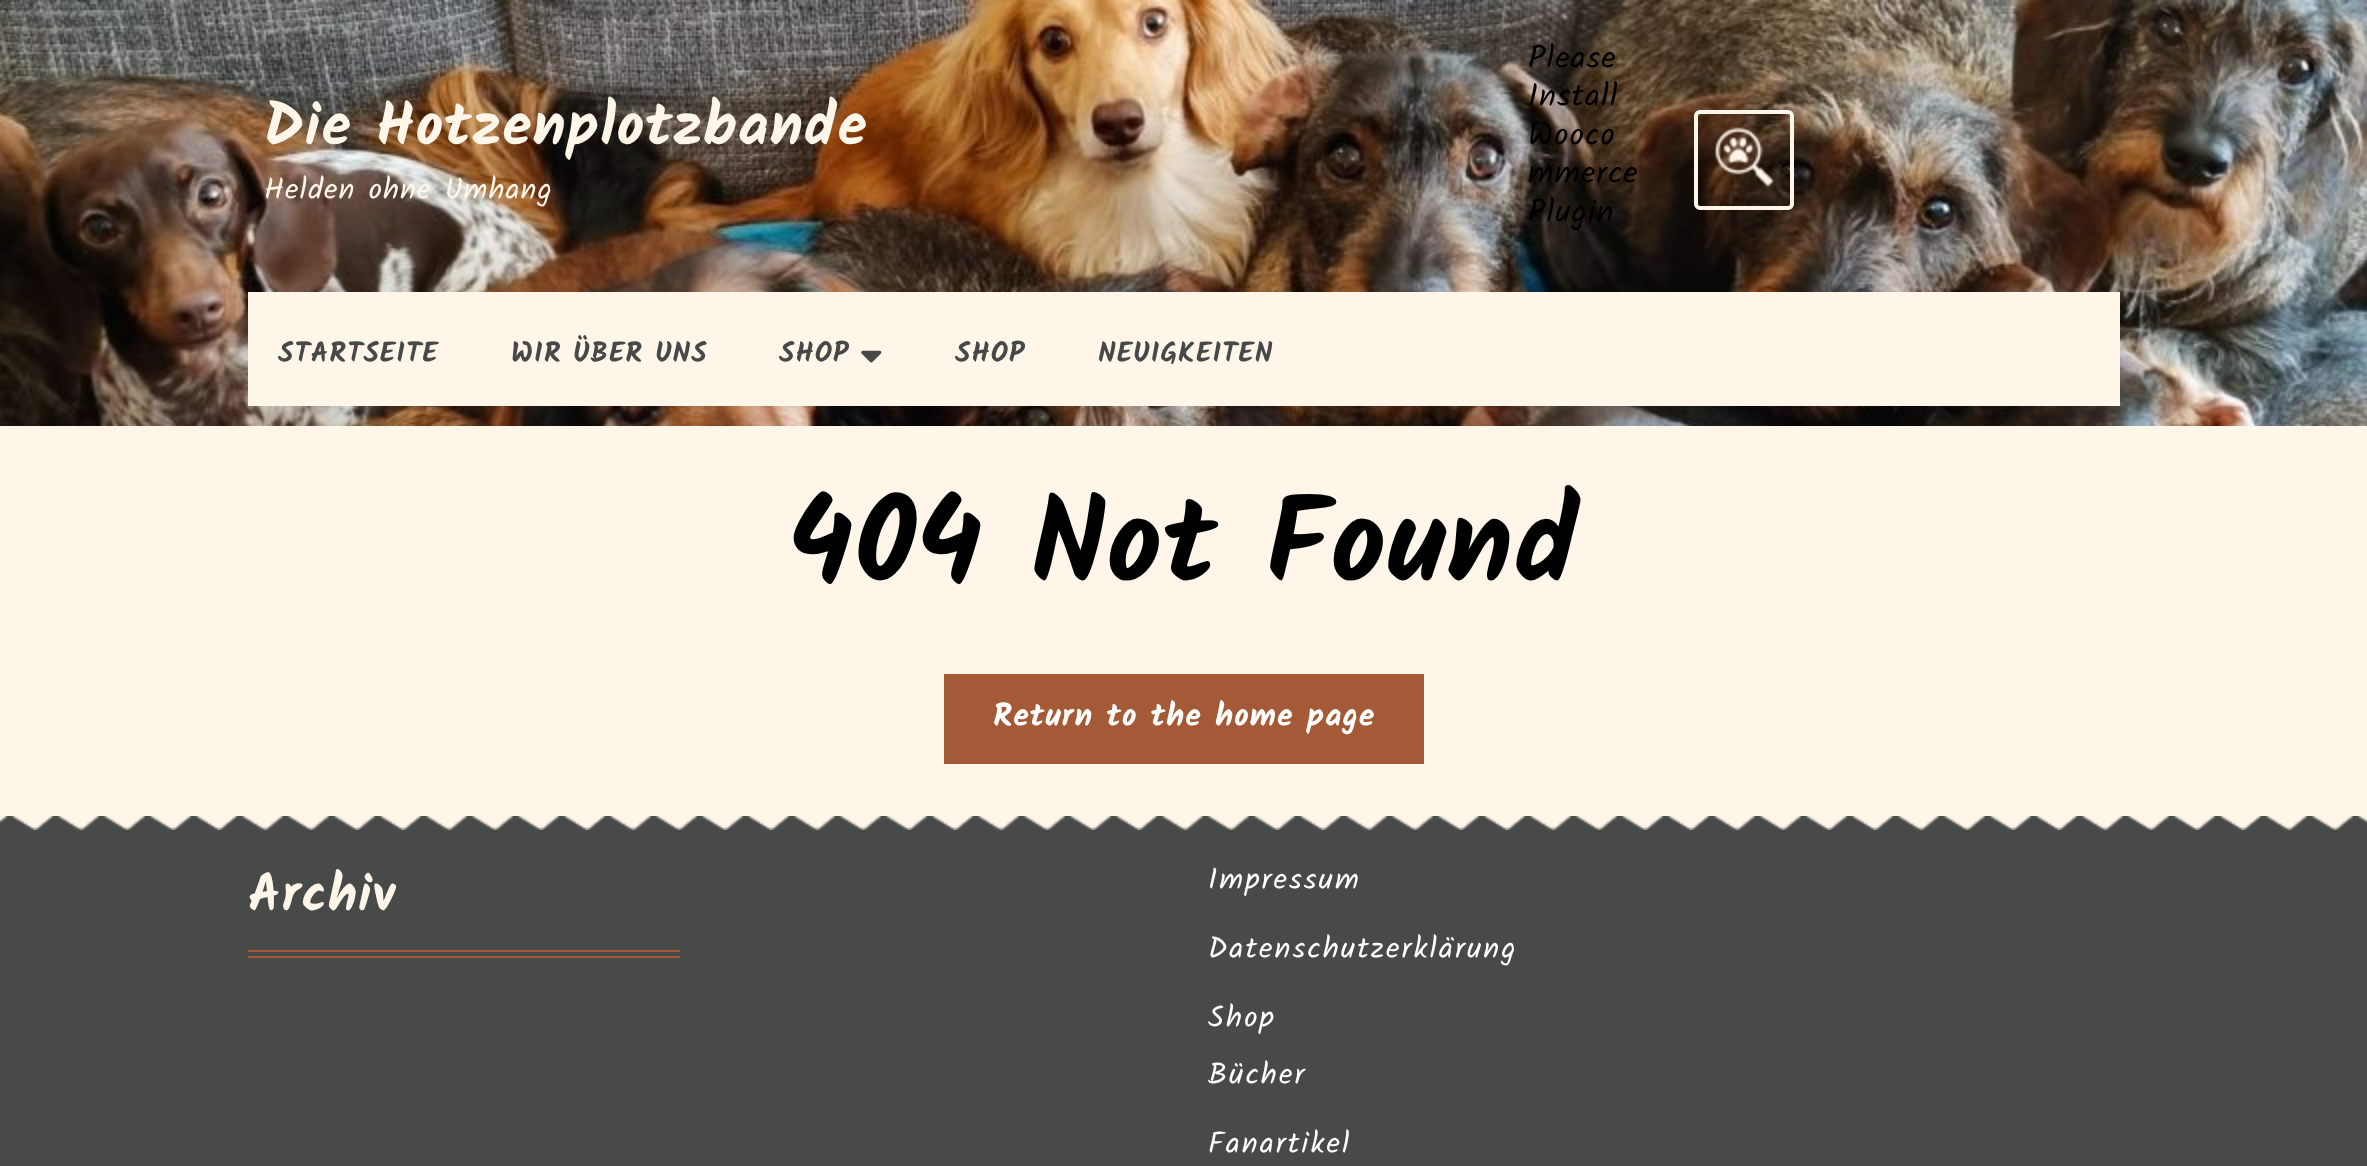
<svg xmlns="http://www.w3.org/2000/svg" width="2367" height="1166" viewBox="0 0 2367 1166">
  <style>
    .t1 { font: bold 60px Kalam; letter-spacing: 1px; fill: #fff6ea; }
    .t2 { font: 30px Kalam; letter-spacing: 1px; fill: #fff6ea; }
    .t3 { font: 32px Kalam; letter-spacing: 1px; fill: #000; }
    .t4 { font: bold 28px Kalam; letter-spacing: 1px; fill: #494848; }
    .t5 { font: bold 120px Kalam; letter-spacing: 1px; fill: #000; }
    .t6 { font: bold 32px Kalam; letter-spacing: 1px; fill: #fff; }
    .t7 { font: bold 52px Kalam; letter-spacing: 1px; fill: #fff6ea; }
    .t8 { font: 30px Kalam; letter-spacing: 2px; fill: #fff; }
  </style>
  <rect width="100%" height="100%" fill="#fff6ea"/>
  <image x="0" y="0" width="2367" height="426" href="images/1.png"/>
  <text x="264" y="145" class="t1">Die Hotzenplotzbande</text>
  <text x="264" y="199" class="t2">Helden ohne Umhang</text>
  <text x="1528" y="68" class="t3">Please</text>
  <text x="1528" y="106" class="t3">Install</text>
  <text x="1528" y="145" class="t3">Wooco</text>
  <text x="1528" y="183" class="t3">mmerce</text>
  <text x="1528" y="222" class="t3">Plugin</text>
  <image x="1714" y="127" width="61" height="60" href="images/2.png"/>
  <rect x="1696" y="112" width="96" height="96" rx="4" fill="none" stroke="#fff6ea" stroke-width="4"/>
  <rect x="248" y="292" width="1872" height="114" fill="#fff6ea"/>
  <text x="278" y="362" class="t4">STARTSEITE</text>
  <text x="511" y="362" class="t4">WIR ÜBER UNS</text>
  <text x="779" y="362" class="t4">SHOP</text>
  <image x="861" y="350" width="21" height="13" href="images/3.png"/>
  <text x="955" y="362" class="t4">SHOP</text>
  <text x="1098" y="362" class="t4">NEUIGKEITEN</text>
  <text x="788" y="582" class="t5">404 Not Found</text>
  <rect x="944" y="674" width="480" height="90" fill="#a45a37"/>
  <text x="993" y="726" class="t6">Return to the home page</text>
  <rect x="0" y="816" width="2367" height="350" fill="#484949"/>
  <image x="0" y="816" width="2367" height="14" href="images/4.png"/>
  <rect x="248" y="950" width="432" height="2" fill="#a45a37"/>
  <rect x="248" y="956" width="432" height="2" fill="#a45a37"/>
  <text x="248" y="911" class="t7">Archiv</text>
  <text x="1208" y="889" class="t8">Impressum</text>
  <text x="1208" y="958" class="t8">Datenschutzerklärung</text>
  <text x="1208" y="1027" class="t8">Shop</text>
  <text x="1208" y="1084" class="t8">Bücher</text>
  <text x="1208" y="1153" class="t8">Fanartikel</text>
</svg>
